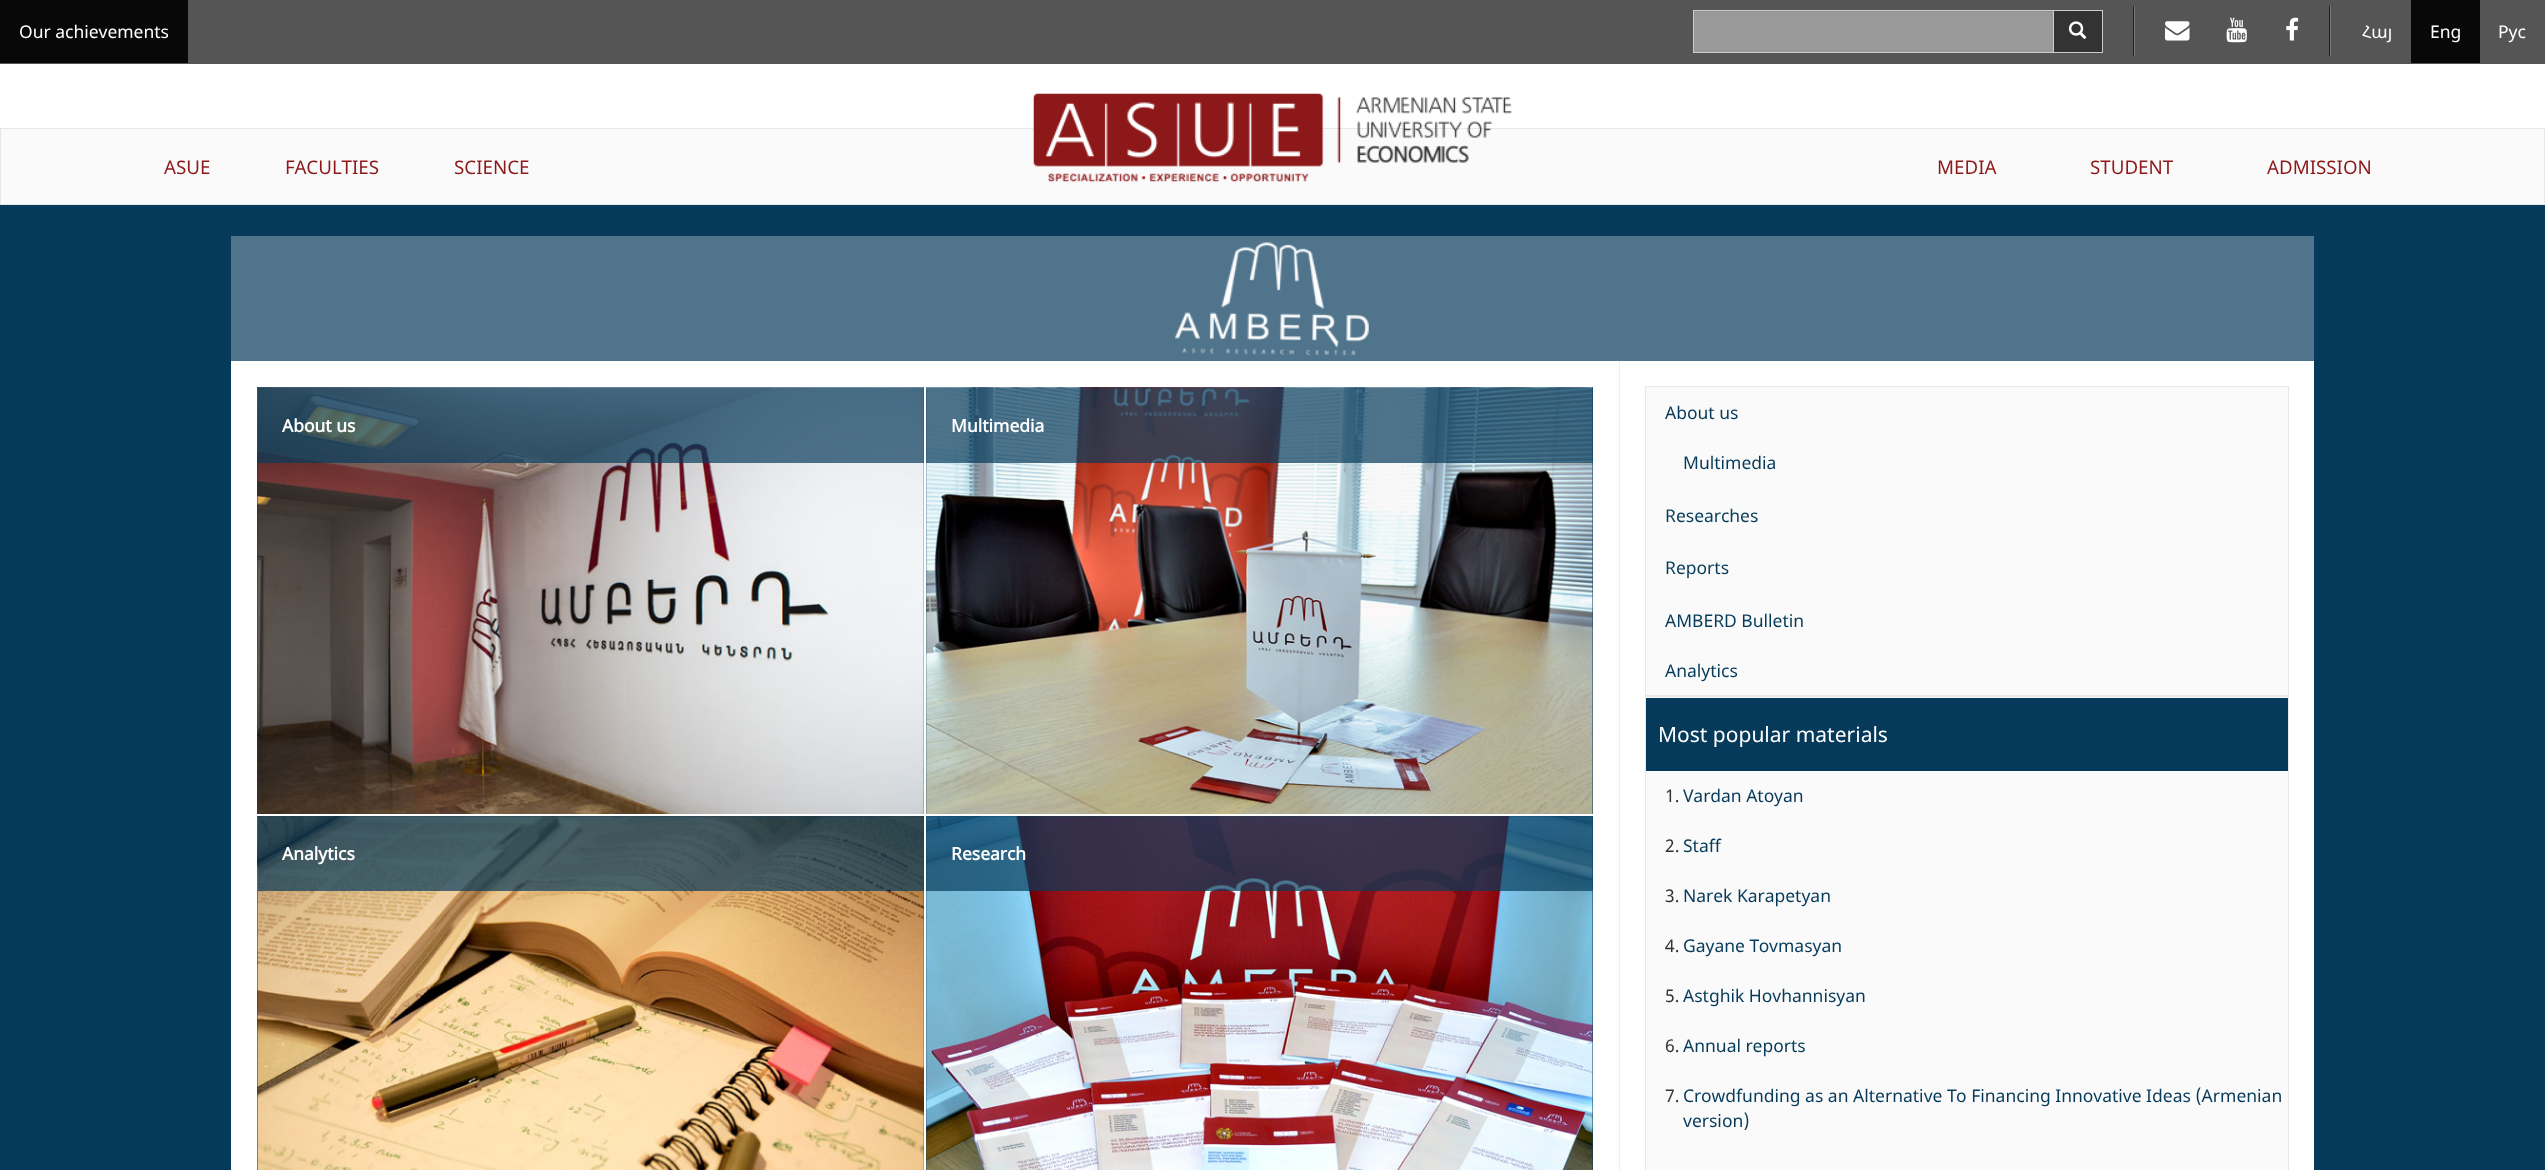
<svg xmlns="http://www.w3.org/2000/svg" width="2545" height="1170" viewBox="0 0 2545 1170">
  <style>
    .t1 { font: 17.5px Noto Sans; fill: #fff; }
    .t2 { font: 17.5px Noto Sans Armenian; fill: #fff; }
    .t3 { font: 18.75px Noto Sans; fill: #8d181a; }
    .t4 { font: bold 17.5px Noto Sans; fill: #fff; }
    .t5 { font: 17.5px Noto Sans; fill: #063a5a; }
    .t6 { font: 21px Noto Sans; fill: #fff; }
    .t7 { font: 17.5px Noto Sans; fill: #333; }
  </style>
  <rect width="100%" height="100%" fill="#fff"/>
  <rect x="0" y="0" width="2545" height="64" fill="#555"/>
  <rect x="0" y="0" width="188" height="63" fill="#080808"/>
  <text x="19" y="38" class="t1">Our achievements</text>
  <rect x="1694" y="12" width="359" height="40" fill="#999"/>
  <rect x="1694" y="11" width="359" height="1" fill="#8e8e8e"/>
  <rect x="1693.5" y="10.5" width="360" height="42" fill="none" stroke="#ccc"/>
  <rect x="2053.5" y="10.5" width="49" height="42" fill="#333" stroke="#ccc"/>
  <image x="2068" y="21" width="19" height="18" href="images/1.png"/>
  <rect x="2134" y="6" width="1" height="50" fill="#777"/>
  <rect x="2133" y="6" width="1" height="50" fill="#222"/>
  <image x="2165" y="21" width="25" height="20" href="images/2.png"/>
  <image x="2226" y="17" width="21" height="26" href="images/3.png"/>
  <image x="2286" y="17" width="13" height="24" href="images/4.png"/>
  <rect x="2330" y="6" width="1" height="50" fill="#777"/>
  <rect x="2329" y="6" width="1" height="50" fill="#222"/>
  <text x="2362" y="38" class="t2">Հայ</text>
  <rect x="2411" y="0" width="69" height="63" fill="#080808"/>
  <text x="2430" y="38" class="t1">Eng</text>
  <text x="2498" y="38" class="t1">Рус</text>
  <rect x="0.5" y="128.5" width="2544" height="76" fill="#fafafa" stroke="#e7e7e7"/>
  <image x="1033" y="93" width="479" height="89" href="images/5.png"/>
  <text x="164" y="174" class="t3">ASUE</text>
  <text x="285" y="174" class="t3">FACULTIES</text>
  <text x="454" y="174" class="t3">SCIENCE</text>
  <text x="1937" y="174" class="t3">MEDIA</text>
  <text x="2090" y="174" class="t3">STUDENT</text>
  <text x="2267" y="174" class="t3">ADMISSION</text>
  <rect x="0" y="205" width="2545" height="965" fill="#063a5a"/>
  <rect x="231" y="236" width="2083" height="125" fill="#50748b"/>
  <image x="1175" y="242" width="194" height="113" href="images/6.png"/>
  <rect x="231" y="361" width="2083" height="809" fill="#fff"/>
  <rect x="1619" y="361" width="1" height="809" fill="#eee"/>
  <rect x="257" y="387" width="667" height="427" fill="#063a5a"/>
  <image x="257" y="387" width="667" height="427" href="images/7.png"/>
  <rect x="258" y="388" width="666" height="75" fill="#063a5bb3"/>
  <text x="282" y="432" class="t4">About us</text>
  <rect x="926" y="387" width="667" height="427" fill="#063a5a"/>
  <image x="926" y="387" width="667" height="427" href="images/8.png"/>
  <rect x="926" y="388" width="667" height="75" fill="#063a5bb3"/>
  <text x="951" y="432" class="t4">Multimedia</text>
  <rect x="257" y="816" width="667" height="354" fill="#063a5a"/>
  <image x="257" y="816" width="667" height="354" href="images/9.png"/>
  <rect x="258" y="816" width="666" height="75" fill="#063a5bb3"/>
  <text x="282" y="860" class="t4">Analytics</text>
  <rect x="926" y="816" width="667" height="354" fill="#063a5a"/>
  <image x="926" y="816" width="667" height="354" href="images/10.png"/>
  <rect x="926" y="816" width="667" height="75" fill="#063a5bb3"/>
  <text x="951" y="860" class="t4">Research</text>
  <rect x="1645.5" y="386.5" width="643" height="309" fill="#fafafa" stroke="#e7e7e7"/>
  <text x="1665" y="419" class="t5">About us</text>
  <text x="1683" y="469" class="t5">Multimedia</text>
  <text x="1665" y="522" class="t5">Researches</text>
  <text x="1665" y="574" class="t5">Reports</text>
  <text x="1665" y="627" class="t5">AMBERD Bulletin</text>
  <text x="1665" y="677" class="t5">Analytics</text>
  <rect x="1645.5" y="696.5" width="643" height="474" fill="#fafafa" stroke="#e7e7e7"/>
  <rect x="1646" y="698" width="642" height="73" fill="#063a5a"/>
  <text x="1658" y="742" class="t6">Most popular materials</text>
  <text x="1665" y="802" class="t7">1.</text>
  <text x="1683" y="802" class="t5">Vardan Atoyan</text>
  <text x="1665" y="852" class="t7">2.</text>
  <text x="1683" y="852" class="t5">Staff</text>
  <text x="1665" y="902" class="t7">3.</text>
  <text x="1683" y="902" class="t5">Narek Karapetyan</text>
  <text x="1665" y="952" class="t7">4.</text>
  <text x="1683" y="952" class="t5">Gayane Tovmasyan</text>
  <text x="1665" y="1002" class="t7">5.</text>
  <text x="1683" y="1002" class="t5">Astghik Hovhannisyan</text>
  <text x="1665" y="1052" class="t7">6.</text>
  <text x="1683" y="1052" class="t5">Annual reports</text>
  <text x="1665" y="1102" class="t7">7.</text>
  <text x="1683" y="1102" class="t5">Crowdfunding as an Alternative To Financing Innovative Ideas (Armenian</text>
  <text x="1683" y="1127" class="t5">version)</text>
</svg>
